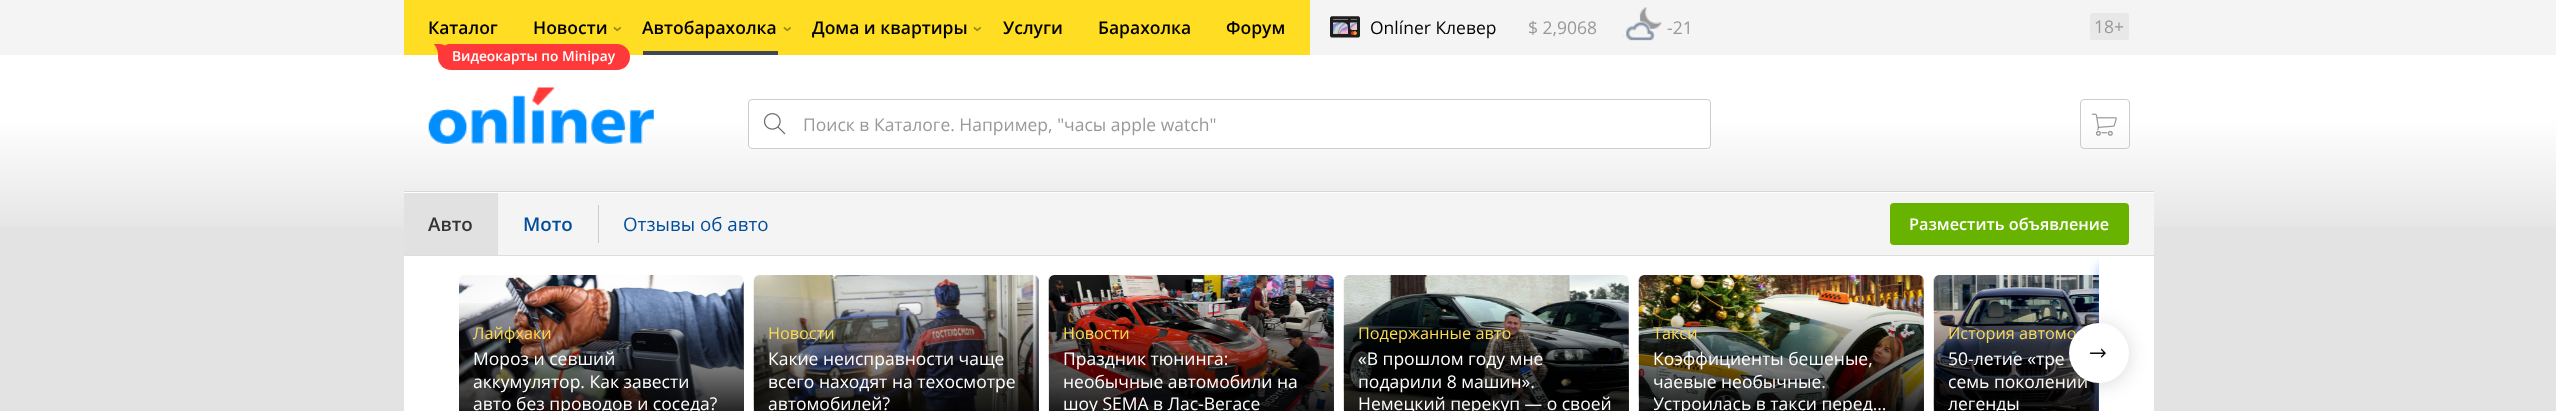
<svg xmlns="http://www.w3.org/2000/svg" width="2556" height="411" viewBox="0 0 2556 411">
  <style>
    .t1 { font: 600 17.5px Open Sans; fill: #000; }
    .t2 { font: 600 13.75px Open Sans; fill: #fff; }
    .t3 { font: 600 17.5px Open Sans; fill: #998514; }
    .t4 { font: 17.5px Open Sans; fill: #000; }
    .t5 { font: 17.5px Open Sans; fill: #999; }
    .t6 { font: 600 18.75px Open Sans; fill: #333; }
    .t7 { font: 600 18.75px Open Sans; fill: #004d99; }
    .t8 { font: 18.75px Open Sans; fill: #004d99; }
    .t9 { font: 600 16.25px Open Sans; fill: #fff; }
    .t10 { font: 16.25px Open Sans; fill: #ffda50; }
    .t11 { font: 17.5px Open Sans; fill: #fff; }
  </style>
  <defs>
    <linearGradient id="g1" gradientUnits="userSpaceOnUse" x1="1278" y1="0" x2="1278" y2="238"><stop offset="0" stop-color="#fff"/><stop offset="0.5" stop-color="#fff"/><stop offset="1" stop-color="#e3e3e3"/></linearGradient>
    <linearGradient id="g2" gradientUnits="userSpaceOnUse" x1="601" y1="275" x2="601" y2="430"><stop offset="0" stop-color="#000" stop-opacity="0"/><stop offset="0.16" stop-color="#000" stop-opacity="0"/><stop offset="1" stop-color="#000"/></linearGradient>
    <linearGradient id="g3" gradientUnits="userSpaceOnUse" x1="896" y1="275" x2="896" y2="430"><stop offset="0" stop-color="#000" stop-opacity="0"/><stop offset="0.16" stop-color="#000" stop-opacity="0"/><stop offset="1" stop-color="#000"/></linearGradient>
    <linearGradient id="g4" gradientUnits="userSpaceOnUse" x1="1191" y1="275" x2="1191" y2="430"><stop offset="0" stop-color="#000" stop-opacity="0"/><stop offset="0.16" stop-color="#000" stop-opacity="0"/><stop offset="1" stop-color="#000"/></linearGradient>
    <linearGradient id="g5" gradientUnits="userSpaceOnUse" x1="1486" y1="275" x2="1486" y2="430"><stop offset="0" stop-color="#000" stop-opacity="0"/><stop offset="0.16" stop-color="#000" stop-opacity="0"/><stop offset="1" stop-color="#000"/></linearGradient>
    <linearGradient id="g6" gradientUnits="userSpaceOnUse" x1="1781" y1="275" x2="1781" y2="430"><stop offset="0" stop-color="#000" stop-opacity="0"/><stop offset="0.16" stop-color="#000" stop-opacity="0"/><stop offset="1" stop-color="#000"/></linearGradient>
    <clipPath id="clip1"><rect x="1654" y="348" width="255" height="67"/></clipPath>
    <linearGradient id="g7" gradientUnits="userSpaceOnUse" x1="2076" y1="275" x2="2076" y2="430"><stop offset="0" stop-color="#000" stop-opacity="0"/><stop offset="0.16" stop-color="#000" stop-opacity="0"/><stop offset="1" stop-color="#000"/></linearGradient>
    <clipPath id="clip2"><rect x="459" y="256" width="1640" height="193"/></clipPath>
  </defs>
  <rect width="100%" height="100%" fill="#e3e3e3"/>
  <rect x="0" y="55" width="2556" height="172" fill="url(#g1)"/>
  <rect x="0" y="0" width="2556" height="55" fill="#f4f4f4"/>
  <rect x="404" y="0" width="906" height="55" fill="#fd2"/>
  <text x="428" y="34" class="t1">Каталог</text>
  <rect x="438" y="44" width="192" height="26" rx="13" fill="#ff3939"/>
  <image x="434" y="44" width="16" height="12" href="images/1.png"/>
  <text x="452" y="61" class="t2">Видеокарты по Minipay</text>
  <text x="642" y="34" class="t1">Автобарахолка</text>
  <text x="792" y="32" transform="rotate(-90 792 32)" class="t3">‹</text>
  <rect x="643" y="51" width="135" height="4" fill="#3e4753"/>
  <text x="533" y="34" class="t1">Новости</text>
  <text x="622" y="32" transform="rotate(-90 622 32)" class="t3">‹</text>
  <text x="812" y="34" class="t1">Дома и квартиры</text>
  <text x="982" y="32" transform="rotate(-90 982 32)" class="t3">‹</text>
  <text x="1003" y="34" class="t1">Услуги</text>
  <text x="1098" y="34" class="t1">Барахолка</text>
  <text x="1226" y="34" class="t1">Форум</text>
  <image x="1330" y="16" width="30" height="22" href="images/2.png"/>
  <text x="1370" y="34" class="t4">Onlíner Клевер</text>
  <text x="1528" y="34" class="t5">$ 2,9068</text>
  <image x="1622" y="7" width="40" height="34" href="images/3.png"/>
  <text x="1667" y="34" class="t5">-21</text>
  <rect x="2090" y="13" width="39" height="27" rx="2.5" fill="#e8e8e8"/>
  <text x="2094" y="33" class="t5">18+</text>
  <image x="428" y="87" width="226" height="57" href="images/4.png"/>
  <rect x="748" y="99" width="963" height="50" rx="4" fill="#fff"/>
  <image x="764" y="113" width="22" height="22" href="images/5.png"/>
  <rect x="748.5" y="99.5" width="962" height="49" rx="3.5" fill="none" stroke="#ccc"/>
  <text x="803" y="131" class="t5">Поиск в Каталоге. Например, "часы apple watch"</text>
  <rect x="2080.5" y="99.5" width="49" height="49" rx="3.5" fill="none" stroke="#ccc"/>
  <image x="2091" y="113" width="26" height="23" href="images/6.png"/>
  <rect x="404" y="192" width="1750" height="219" fill="#fff"/>
  <rect x="404" y="191" width="1750" height="1" fill="#d8d8d8"/>
  <rect x="498" y="193" width="1656" height="62" fill="#f4f4f4"/>
  <rect x="404" y="255" width="1750" height="1" fill="#ddd"/>
  <rect x="404" y="193" width="94" height="62" fill="#e1e1e1"/>
  <text x="428" y="231" class="t6">Авто</text>
  <text x="523" y="231" class="t7">Мото</text>
  <rect x="598" y="205" width="1" height="38" fill="#ccc"/>
  <text x="623" y="231" class="t8">Отзывы об авто</text>
  <rect x="1890" y="203" width="239" height="42" rx="4" fill="#68b300"/>
  <text x="1909" y="230" class="t9">Разместить объявление</text>
  <image x="459" y="275" width="285" height="136" href="images/7.png"/>
  <rect x="459" y="303" width="285" height="108" fill="url(#g2)"/>
  <text x="473" y="339" class="t10">Лайфхаки</text>
  <text x="473" y="365" class="t11">Мороз и севший</text>
  <text x="473" y="388" class="t11">аккумулятор. Как завести</text>
  <text x="473" y="410" class="t11">авто без проводов и соседа?</text>
  <image x="753" y="275" width="286" height="136" href="images/8.png"/>
  <rect x="754" y="303" width="285" height="108" fill="url(#g3)"/>
  <text x="768" y="339" class="t10">Новости</text>
  <text x="768" y="365" class="t11">Какие неисправности чаще</text>
  <text x="768" y="388" class="t11">всего находят на техосмотре</text>
  <text x="768" y="410" class="t11">автомобилей?</text>
  <image x="1048" y="275" width="286" height="136" href="images/9.png"/>
  <rect x="1049" y="303" width="285" height="108" fill="url(#g4)"/>
  <text x="1063" y="339" class="t10">Новости</text>
  <text x="1063" y="365" class="t11">Праздник тюнинга:</text>
  <text x="1063" y="388" class="t11">необычные автомобили на</text>
  <text x="1063" y="410" class="t11">шоу SEMA в Лас-Вегасе</text>
  <image x="1343" y="275" width="286" height="136" href="images/10.png"/>
  <rect x="1344" y="303" width="285" height="108" fill="url(#g5)"/>
  <text x="1358" y="339" class="t10">Подержанные авто</text>
  <text x="1358" y="365" class="t11">«В прошлом году мне</text>
  <text x="1358" y="388" class="t11">подарили 8 машин».</text>
  <text x="1358" y="410" class="t11">Немецкий перекуп — о своей</text>
  <image x="1638" y="275" width="286" height="136" href="images/11.png"/>
  <rect x="1639" y="303" width="285" height="108" fill="url(#g6)"/>
  <text x="1653" y="339" class="t10">Такси</text>
  <text x="1653" y="365" class="t11">Коэффициенты бешеные,</text>
  <text x="1653" y="388" class="t11">чаевые необычные.</text>
  <g clip-path="url(#clip1)">
    <text x="1653" y="410" class="t11">Устроилась в такси перед…</text>
  </g>
  <image x="1933" y="275" width="166" height="136" href="images/12.png"/>
  <rect x="1934" y="303" width="165" height="108" fill="url(#g7)"/>
  <text x="1948" y="339" class="t10">История автомо</text>
  <text x="1948" y="365" class="t11">50-летие «тре</text>
  <text x="1948" y="388" class="t11">семь поколений</text>
  <text x="1948" y="410" class="t11">легенды</text>
  <g clip-path="url(#clip2)">
    <rect x="2099" y="266" width="55" height="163" fill="#2979ff80" filter="blur(6px)"/>
  </g>
  <rect x="2069" y="325" width="60" height="60" rx="30" fill="#00000026" filter="blur(9.5px)"/>
  <circle cx="2099" cy="353" r="30" fill="#fff"/>
  <image x="2090" y="348" width="16" height="10" href="images/13.png"/>
</svg>
